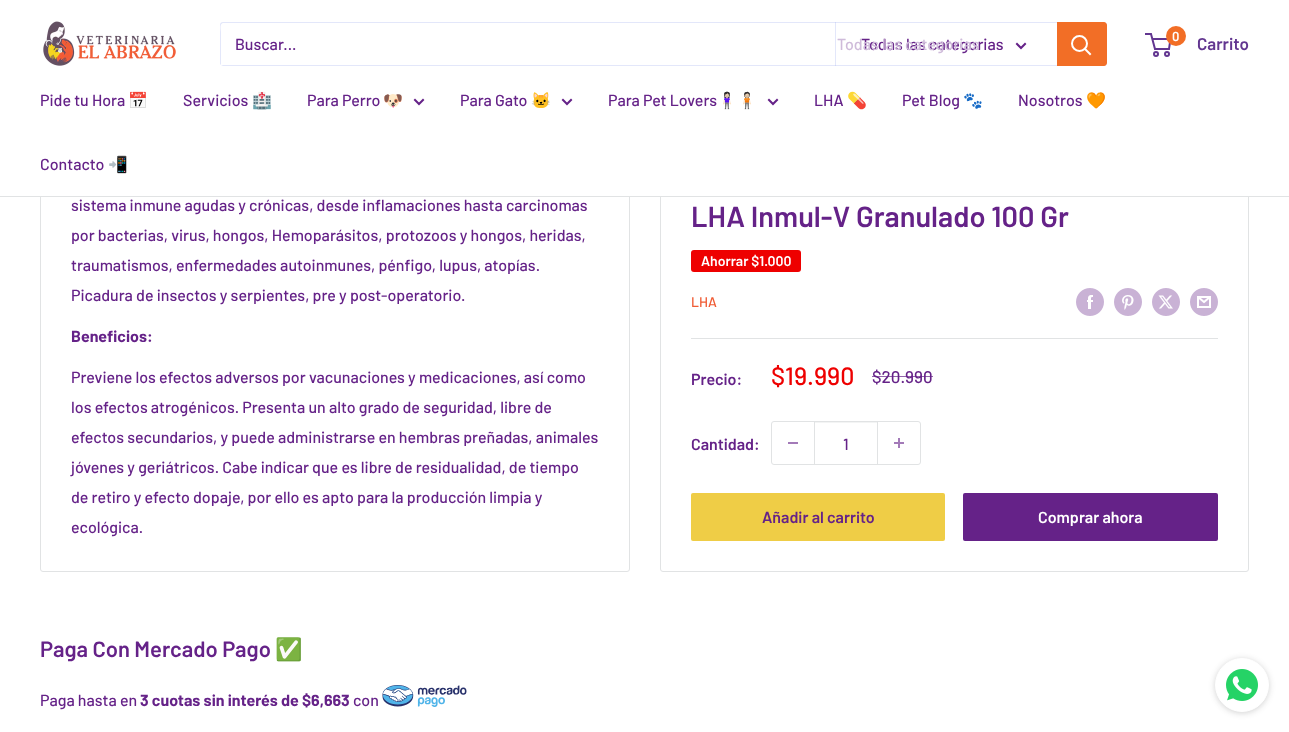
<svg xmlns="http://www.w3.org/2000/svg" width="1289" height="732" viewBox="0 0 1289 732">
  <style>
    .t1 { font: 500 16px Barlow; fill: #652288; }
    .t2 { font: 500 16px Barlow; fill: #cfbbda; }
    .t3 { font: 600 13px Barlow; fill: #fff; }
    .t4 { font: 600 17px Barlow; fill: #623690; }
    .t5 { font: 16px Noto Color Emoji; fill: #652288; }
    .t6 { font: bold 16px Barlow; fill: #652288; }
    .t7 { font: 600 29px Barlow; fill: #652288; }
    .t8 { font: 600 14px Barlow; fill: #fff; }
    .t9 { font: 500 14px Barlow; fill: #f05c35; }
    .t10 { font: 600 16px Barlow; fill: #652288; }
    .t11 { font: 500 25px Barlow; fill: #e00; }
    .t12 { font: 500 17px Barlow; fill: #652288; }
    .t13 { font: 600 16px Barlow; fill: #fff; }
    .t14 { font: 600 22px Barlow; fill: #652288; }
    .t15 { font: bold 22px Noto Color Emoji; fill: #652288; }
  </style>
  <rect width="100%" height="100%" fill="#fff"/>
  <rect x="40.5" y="-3.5" width="589" height="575" rx="2.5" fill="none" stroke="#e1e3e4"/>
  <rect x="40" y="0" width="590" height="68" fill="#fff"/>
  <image x="43" y="21" width="133" height="45" href="images/1.png"/>
  <path d="M221 65L223 66H1104C1106 66 1107 65 1107 63V24L1106 23V56C1106 58 1108 65 1103 65Z" fill="#e3e7fa"/>
  <path d="M224 23H1106L1104 22H223C221 22 220 23 220 25V64L221 65V32C221 30 219 23 224 23Z" fill="#e3e7fa"/>
  <text x="235" y="50" class="t1">Buscar...</text>
  <rect x="835" y="22" width="1" height="44" fill="#a3afef4d"/>
  <text x="861" y="50" class="t1">Todas las categorias</text>
  <text x="837" y="50" class="t2">Todas las categorias</text>
  <path d="M1025 44L1021 48L1017 44" fill="none" stroke="#652288" stroke-width="2" stroke-linecap="square"/>
  <path d="M1057 22H1104C1105.5 22 1107 23.5 1107 25V63C1107 64.5 1105.5 66 1104 66H1057Z" fill="#f26e26"/>
  <path d="M1090 54L1085 49" fill="none" stroke="#fff" stroke-width="2" stroke-linecap="square"/>
  <circle cx="1079.5" cy="43.5" r="7.5" fill="none" stroke="#fff" stroke-width="2"/>
  <circle cx="1156" cy="54" r="2" fill="none" stroke="#623690" stroke-width="2"/>
  <circle cx="1167" cy="54" r="2" fill="none" stroke="#623690" stroke-width="2"/>
  <path d="M1152.5 39H1170.5L1169 49H1155L1151 34H1145" fill="none" stroke="#623690" stroke-width="2"/>
  <circle cx="1176" cy="36" r="10" fill="#f26e26"/>
  <text x="1172" y="41" class="t3">0</text>
  <text x="1197" y="50" class="t4">Carrito</text>
  <rect x="660.5" y="175.5" width="588" height="396" rx="2.5" fill="none" stroke="#e1e3e4"/>
  <rect x="40" y="68" width="1209" height="128" fill="#fff"/>
  <rect x="0" y="196" width="1289" height="1" fill="#e1e3e4"/>
  <text x="40" y="106" class="t1">Pide tu Hora</text>
  <text x="128" y="106" class="t5">📅</text>
  <text x="183" y="106" class="t1">Servicios</text>
  <text x="252" y="106" class="t5">🏥</text>
  <text x="307" y="106" class="t1">Para Perro</text>
  <text x="383" y="106" class="t5">🐶</text>
  <path d="M423 100L419 104L415 100" fill="none" stroke="#652288" stroke-width="2" stroke-linecap="square"/>
  <text x="460" y="106" class="t1">Para Gato</text>
  <text x="531" y="106" class="t5">🐱</text>
  <path d="M571 100L567 104L563 100" fill="none" stroke="#652288" stroke-width="2" stroke-linecap="square"/>
  <text x="608" y="106" class="t1">Para Pet Lovers</text>
  <text x="717" y="106" class="t5">🧍🏻‍♀️🧍🏻</text>
  <path d="M777 100L773 104L769 100" fill="none" stroke="#652288" stroke-width="2" stroke-linecap="square"/>
  <text x="814" y="106" class="t1">LHA</text>
  <text x="847" y="106" class="t5">💊</text>
  <text x="902" y="106" class="t1">Pet Blog</text>
  <text x="963" y="106" class="t5">🐾</text>
  <text x="1018" y="106" class="t1">Nosotros</text>
  <text x="1086" y="106" class="t5">🧡</text>
  <text x="40" y="170" class="t1">Contacto</text>
  <text x="108" y="170" class="t5">📲</text>
  <text x="71" y="211" class="t1">sistema inmune agudas y crónicas, desde inflamaciones hasta carcinomas</text>
  <text x="71" y="241" class="t1">por bacterias, virus, hongos, Hemoparásitos, protozoos y hongos, heridas,</text>
  <text x="71" y="271" class="t1">traumatismos, enfermedades autoinmunes, pénfigo, lupus, atopías.</text>
  <text x="71" y="301" class="t1">Picadura de insectos y serpientes, pre y post-operatorio.</text>
  <text x="71" y="342" class="t6">Beneficios:</text>
  <text x="71" y="383" class="t1">Previene los efectos adversos por vacunaciones y medicaciones, así como</text>
  <text x="71" y="413" class="t1">los efectos atrogénicos. Presenta un alto grado de seguridad, libre de</text>
  <text x="71" y="443" class="t1">efectos secundarios, y puede administrarse en hembras preñadas, animales</text>
  <text x="71" y="473" class="t1">jóvenes y geriátricos. Cabe indicar que es libre de residualidad, de tiempo</text>
  <text x="71" y="503" class="t1">de retiro y efecto dopaje, por ello es apto para la producción limpia y</text>
  <text x="71" y="533" class="t1">ecológica.</text>
  <text x="691" y="227" class="t7">LHA Inmul-V Granulado 100 Gr</text>
  <rect x="691" y="250" width="110" height="22" rx="3" fill="#e00"/>
  <text x="701" y="266" class="t8">Ahorrar $1.000</text>
  <text x="691" y="307" class="t9">LHA</text>
  <image x="1076" y="288" width="28" height="28" href="images/2.png"/>
  <image x="1114" y="288" width="28" height="28" href="images/3.png"/>
  <image x="1152" y="288" width="28" height="28" href="images/4.png"/>
  <image x="1190" y="288" width="28" height="28" href="images/5.png"/>
  <rect x="691" y="338" width="527" height="1" fill="#e1e3e4"/>
  <text x="691" y="385" class="t10">Precio:</text>
  <text x="771" y="385" class="t11">$19.990</text>
  <text x="872" y="383" class="t12">$20.990</text>
  <rect x="872" y="376" width="61" height="1" fill="#652288b3"/>
  <text x="691" y="450" class="t10">Cantidad:</text>
  <rect x="771.5" y="421.5" width="149" height="43" rx="2.5" fill="none" stroke="#e1e3e4"/>
  <rect x="788" y="442" width="10" height="2" fill="#a37ab8"/>
  <rect x="815" y="422" width="62" height="1" fill="#f3f4f4"/>
  <rect x="877" y="422" width="1" height="42" fill="#e1e3e4"/>
  <rect x="814" y="422" width="1" height="42" fill="#e1e3e4"/>
  <text x="843" y="450" class="t1">1</text>
  <image x="894" y="438" width="10" height="10" href="images/6.png"/>
  <rect x="691" y="493" width="254" height="48" rx="2" fill="#efcd46"/>
  <text x="762" y="523" class="t10">Añadir al carrito</text>
  <rect x="963" y="493" width="255" height="48" rx="2" fill="#652288"/>
  <text x="1038" y="523" class="t13">Comprar ahora</text>
  <text x="40" y="657" class="t14">Paga Con Mercado Pago</text>
  <text x="275" y="657" class="t15">✅</text>
  <text x="40" y="706" class="t1">Paga hasta en</text>
  <text x="140" y="706" class="t6">3 cuotas sin interés de $6,663</text>
  <text x="353" y="706" class="t1">con</text>
  <image x="382" y="685" width="85" height="22" href="images/7.png"/>
  <rect x="1215" y="659" width="54" height="54" rx="27" fill="#1b1b1b33" filter="blur(3px)"/>
  <circle cx="1242" cy="685" r="26.5" fill="#fff" stroke="#fff"/>
  <image x="1226" y="669" width="32" height="32" href="images/8.png"/>
</svg>
